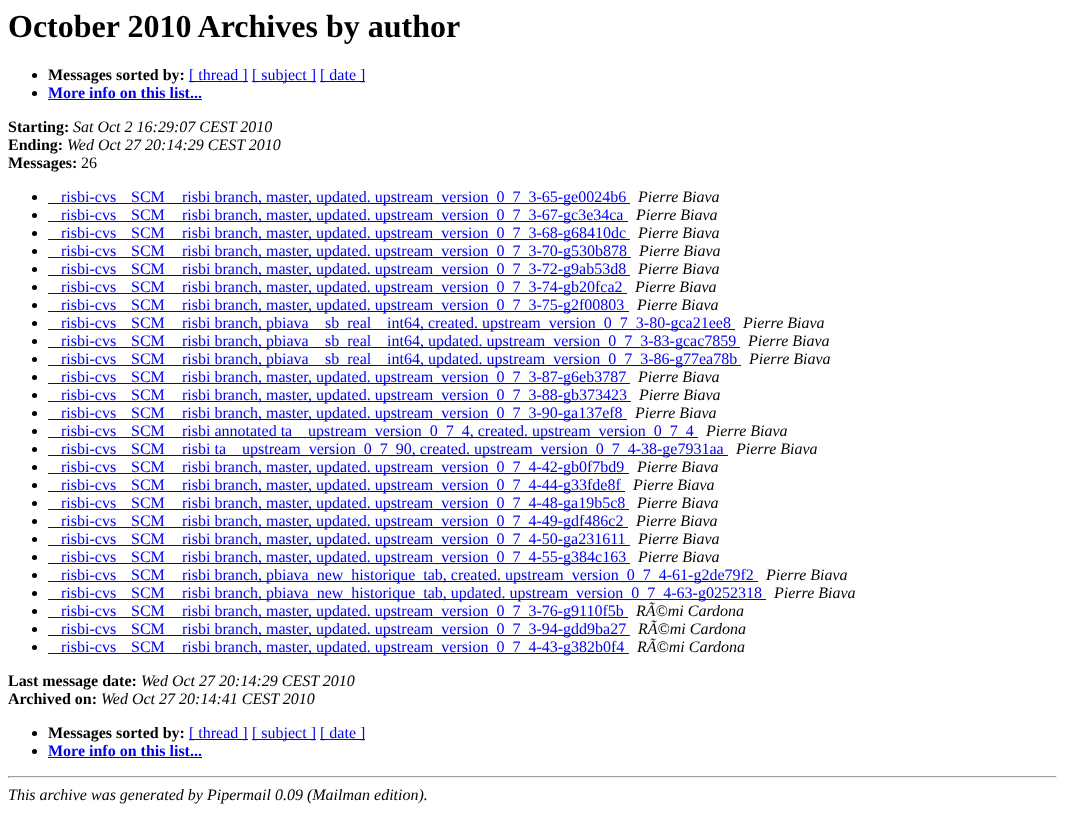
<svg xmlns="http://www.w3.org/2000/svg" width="1065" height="817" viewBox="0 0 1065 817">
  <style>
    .t1 { font: bold 32px Liberation Serif; fill: #000; }
    .t2 { font: bold 16px Liberation Serif; fill: #000; }
    .t3 { font: 16px Liberation Serif; fill: #00e; }
    .t4 { font: bold 16px Liberation Serif; fill: #00e; }
    .t5 { font: italic 16px Liberation Serif; fill: #000; }
    .t6 { font: 16px Liberation Serif; fill: #000; }
  </style>
  <rect width="100%" height="100%" fill="#fff"/>
  <text x="8" y="37" class="t1">October 2010 Archives by author</text>
  <circle cx="34.5" cy="75.5" r="2.5" fill="#000"/>
  <text x="48" y="80" class="t2">Messages sorted by:</text>
  <rect x="189" y="81" width="59" height="1" fill="#00e"/>
  <text x="189" y="80" class="t3">[ thread ]</text>
  <rect x="252" y="81" width="64" height="1" fill="#00e"/>
  <text x="252" y="80" class="t3">[ subject ]</text>
  <rect x="320" y="81" width="45" height="1" fill="#00e"/>
  <text x="320" y="80" class="t3">[ date ]</text>
  <circle cx="34.5" cy="93.5" r="2.5" fill="#000"/>
  <text x="48" y="98" class="t4">More info on this list...</text>
  <rect x="48" y="99" width="154" height="1" fill="#00e"/>
  <text x="8" y="132" class="t2">Starting:</text>
  <text x="73" y="132" class="t5">Sat Oct 2 16:29:07 CEST 2010</text>
  <text x="8" y="150" class="t2">Ending:</text>
  <text x="67" y="150" class="t5">Wed Oct 27 20:14:29 CEST 2010</text>
  <text x="8" y="168" class="t2">Messages:</text>
  <text x="81" y="168" class="t6">26</text>
  <circle cx="34.5" cy="197.5" r="2.5" fill="#000"/>
  <text x="61" y="202" class="t3">risbi-cvs</text>
  <text x="131" y="202" class="t3">SCM</text>
  <rect x="48" y="203" width="582" height="1" fill="#00e"/>
  <text x="182" y="202" class="t3">risbi branch, master, updated. upstream_version_0_7_3-65-ge0024b6</text>
  <text x="638" y="202" class="t5">Pierre Biava</text>
  <circle cx="34.5" cy="215.5" r="2.5" fill="#000"/>
  <text x="61" y="220" class="t3">risbi-cvs</text>
  <text x="131" y="220" class="t3">SCM</text>
  <rect x="48" y="221" width="580" height="1" fill="#00e"/>
  <text x="182" y="220" class="t3">risbi branch, master, updated. upstream_version_0_7_3-67-gc3e34ca</text>
  <text x="636" y="220" class="t5">Pierre Biava</text>
  <circle cx="34.5" cy="233.5" r="2.5" fill="#000"/>
  <text x="61" y="238" class="t3">risbi-cvs</text>
  <text x="131" y="238" class="t3">SCM</text>
  <rect x="48" y="239" width="582" height="1" fill="#00e"/>
  <text x="182" y="238" class="t3">risbi branch, master, updated. upstream_version_0_7_3-68-g68410dc</text>
  <text x="638" y="238" class="t5">Pierre Biava</text>
  <circle cx="34.5" cy="251.5" r="2.5" fill="#000"/>
  <text x="61" y="256" class="t3">risbi-cvs</text>
  <text x="131" y="256" class="t3">SCM</text>
  <rect x="48" y="257" width="583" height="1" fill="#00e"/>
  <text x="182" y="256" class="t3">risbi branch, master, updated. upstream_version_0_7_3-70-g530b878</text>
  <text x="639" y="256" class="t5">Pierre Biava</text>
  <circle cx="34.5" cy="269.5" r="2.5" fill="#000"/>
  <text x="61" y="274" class="t3">risbi-cvs</text>
  <text x="131" y="274" class="t3">SCM</text>
  <rect x="48" y="275" width="582" height="1" fill="#00e"/>
  <text x="182" y="274" class="t3">risbi branch, master, updated. upstream_version_0_7_3-72-g9ab53d8</text>
  <text x="638" y="274" class="t5">Pierre Biava</text>
  <circle cx="34.5" cy="287.5" r="2.5" fill="#000"/>
  <text x="61" y="292" class="t3">risbi-cvs</text>
  <text x="131" y="292" class="t3">SCM</text>
  <rect x="48" y="293" width="579" height="1" fill="#00e"/>
  <text x="182" y="292" class="t3">risbi branch, master, updated. upstream_version_0_7_3-74-gb20fca2</text>
  <text x="635" y="292" class="t5">Pierre Biava</text>
  <circle cx="34.5" cy="305.5" r="2.5" fill="#000"/>
  <text x="61" y="310" class="t3">risbi-cvs</text>
  <text x="131" y="310" class="t3">SCM</text>
  <rect x="48" y="311" width="581" height="1" fill="#00e"/>
  <text x="182" y="310" class="t3">risbi branch, master, updated. upstream_version_0_7_3-75-g2f00803</text>
  <text x="637" y="310" class="t5">Pierre Biava</text>
  <circle cx="34.5" cy="323.5" r="2.5" fill="#000"/>
  <text x="61" y="328" class="t3">risbi-cvs</text>
  <text x="131" y="328" class="t3">SCM</text>
  <rect x="48" y="329" width="687" height="1" fill="#00e"/>
  <text x="182" y="328" class="t3">risbi branch, pbiava</text>
  <text x="325" y="328" class="t3">sb_real</text>
  <text x="387" y="328" class="t3">int64, created. upstream_version_0_7_3-80-gca21ee8</text>
  <text x="743" y="328" class="t5">Pierre Biava</text>
  <circle cx="34.5" cy="341.5" r="2.5" fill="#000"/>
  <text x="61" y="346" class="t3">risbi-cvs</text>
  <text x="131" y="346" class="t3">SCM</text>
  <rect x="48" y="347" width="692" height="1" fill="#00e"/>
  <text x="182" y="346" class="t3">risbi branch, pbiava</text>
  <text x="325" y="346" class="t3">sb_real</text>
  <text x="387" y="346" class="t3">int64, updated. upstream_version_0_7_3-83-gcac7859</text>
  <text x="748" y="346" class="t5">Pierre Biava</text>
  <circle cx="34.5" cy="359.5" r="2.5" fill="#000"/>
  <text x="61" y="364" class="t3">risbi-cvs</text>
  <text x="131" y="364" class="t3">SCM</text>
  <rect x="48" y="365" width="693" height="1" fill="#00e"/>
  <text x="182" y="364" class="t3">risbi branch, pbiava</text>
  <text x="325" y="364" class="t3">sb_real</text>
  <text x="387" y="364" class="t3">int64, updated. upstream_version_0_7_3-86-g77ea78b</text>
  <text x="749" y="364" class="t5">Pierre Biava</text>
  <circle cx="34.5" cy="377.5" r="2.5" fill="#000"/>
  <text x="61" y="382" class="t3">risbi-cvs</text>
  <text x="131" y="382" class="t3">SCM</text>
  <rect x="48" y="383" width="582" height="1" fill="#00e"/>
  <text x="182" y="382" class="t3">risbi branch, master, updated. upstream_version_0_7_3-87-g6eb3787</text>
  <text x="638" y="382" class="t5">Pierre Biava</text>
  <circle cx="34.5" cy="395.5" r="2.5" fill="#000"/>
  <text x="61" y="400" class="t3">risbi-cvs</text>
  <text x="131" y="400" class="t3">SCM</text>
  <rect x="48" y="401" width="583" height="1" fill="#00e"/>
  <text x="182" y="400" class="t3">risbi branch, master, updated. upstream_version_0_7_3-88-gb373423</text>
  <text x="639" y="400" class="t5">Pierre Biava</text>
  <circle cx="34.5" cy="413.5" r="2.5" fill="#000"/>
  <text x="61" y="418" class="t3">risbi-cvs</text>
  <text x="131" y="418" class="t3">SCM</text>
  <rect x="48" y="419" width="579" height="1" fill="#00e"/>
  <text x="182" y="418" class="t3">risbi branch, master, updated. upstream_version_0_7_3-90-ga137ef8</text>
  <text x="635" y="418" class="t5">Pierre Biava</text>
  <circle cx="34.5" cy="431.5" r="2.5" fill="#000"/>
  <text x="61" y="436" class="t3">risbi-cvs</text>
  <text x="131" y="436" class="t3">SCM</text>
  <text x="182" y="436" class="t3">risbi annotated ta</text>
  <rect x="48" y="437" width="650" height="1" fill="#00e"/>
  <text x="308" y="436" class="t3">upstream_version_0_7_4, created. upstream_version_0_7_4</text>
  <text x="706" y="436" class="t5">Pierre Biava</text>
  <circle cx="34.5" cy="449.5" r="2.5" fill="#000"/>
  <text x="61" y="454" class="t3">risbi-cvs</text>
  <text x="131" y="454" class="t3">SCM</text>
  <text x="182" y="454" class="t3">risbi ta</text>
  <rect x="48" y="455" width="680" height="1" fill="#00e"/>
  <text x="242" y="454" class="t3">upstream_version_0_7_90, created. upstream_version_0_7_4-38-ge7931aa</text>
  <text x="736" y="454" class="t5">Pierre Biava</text>
  <circle cx="34.5" cy="467.5" r="2.5" fill="#000"/>
  <text x="61" y="472" class="t3">risbi-cvs</text>
  <text x="131" y="472" class="t3">SCM</text>
  <rect x="48" y="473" width="581" height="1" fill="#00e"/>
  <text x="182" y="472" class="t3">risbi branch, master, updated. upstream_version_0_7_4-42-gb0f7bd9</text>
  <text x="637" y="472" class="t5">Pierre Biava</text>
  <circle cx="34.5" cy="485.5" r="2.5" fill="#000"/>
  <text x="61" y="490" class="t3">risbi-cvs</text>
  <text x="131" y="490" class="t3">SCM</text>
  <rect x="48" y="491" width="577" height="1" fill="#00e"/>
  <text x="182" y="490" class="t3">risbi branch, master, updated. upstream_version_0_7_4-44-g33fde8f</text>
  <text x="633" y="490" class="t5">Pierre Biava</text>
  <circle cx="34.5" cy="503.5" r="2.5" fill="#000"/>
  <text x="61" y="508" class="t3">risbi-cvs</text>
  <text x="131" y="508" class="t3">SCM</text>
  <rect x="48" y="509" width="581" height="1" fill="#00e"/>
  <text x="182" y="508" class="t3">risbi branch, master, updated. upstream_version_0_7_4-48-ga19b5c8</text>
  <text x="637" y="508" class="t5">Pierre Biava</text>
  <circle cx="34.5" cy="521.5" r="2.5" fill="#000"/>
  <text x="61" y="526" class="t3">risbi-cvs</text>
  <text x="131" y="526" class="t3">SCM</text>
  <rect x="48" y="527" width="580" height="1" fill="#00e"/>
  <text x="182" y="526" class="t3">risbi branch, master, updated. upstream_version_0_7_4-49-gdf486c2</text>
  <text x="636" y="526" class="t5">Pierre Biava</text>
  <circle cx="34.5" cy="539.5" r="2.5" fill="#000"/>
  <text x="61" y="544" class="t3">risbi-cvs</text>
  <text x="131" y="544" class="t3">SCM</text>
  <rect x="48" y="545" width="582" height="1" fill="#00e"/>
  <text x="182" y="544" class="t3">risbi branch, master, updated. upstream_version_0_7_4-50-ga231611</text>
  <text x="638" y="544" class="t5">Pierre Biava</text>
  <circle cx="34.5" cy="557.5" r="2.5" fill="#000"/>
  <text x="61" y="562" class="t3">risbi-cvs</text>
  <text x="131" y="562" class="t3">SCM</text>
  <rect x="48" y="563" width="582" height="1" fill="#00e"/>
  <text x="182" y="562" class="t3">risbi branch, master, updated. upstream_version_0_7_4-55-g384c163</text>
  <text x="638" y="562" class="t5">Pierre Biava</text>
  <circle cx="34.5" cy="575.5" r="2.5" fill="#000"/>
  <text x="61" y="580" class="t3">risbi-cvs</text>
  <text x="131" y="580" class="t3">SCM</text>
  <rect x="48" y="581" width="710" height="1" fill="#00e"/>
  <text x="182" y="580" class="t3">risbi branch, pbiava_new_historique_tab, created. upstream_version_0_7_4-61-g2de79f2</text>
  <text x="766" y="580" class="t5">Pierre Biava</text>
  <circle cx="34.5" cy="593.5" r="2.5" fill="#000"/>
  <text x="61" y="598" class="t3">risbi-cvs</text>
  <text x="131" y="598" class="t3">SCM</text>
  <rect x="48" y="599" width="718" height="1" fill="#00e"/>
  <text x="182" y="598" class="t3">risbi branch, pbiava_new_historique_tab, updated. upstream_version_0_7_4-63-g0252318</text>
  <text x="774" y="598" class="t5">Pierre Biava</text>
  <circle cx="34.5" cy="611.5" r="2.5" fill="#000"/>
  <text x="61" y="616" class="t3">risbi-cvs</text>
  <text x="131" y="616" class="t3">SCM</text>
  <rect x="48" y="617" width="580" height="1" fill="#00e"/>
  <text x="182" y="616" class="t3">risbi branch, master, updated. upstream_version_0_7_3-76-g9110f5b</text>
  <text x="636" y="616" class="t5">RÃ©mi Cardona</text>
  <circle cx="34.5" cy="629.5" r="2.5" fill="#000"/>
  <text x="61" y="634" class="t3">risbi-cvs</text>
  <text x="131" y="634" class="t3">SCM</text>
  <rect x="48" y="635" width="582" height="1" fill="#00e"/>
  <text x="182" y="634" class="t3">risbi branch, master, updated. upstream_version_0_7_3-94-gdd9ba27</text>
  <text x="638" y="634" class="t5">RÃ©mi Cardona</text>
  <circle cx="34.5" cy="647.5" r="2.5" fill="#000"/>
  <text x="61" y="652" class="t3">risbi-cvs</text>
  <text x="131" y="652" class="t3">SCM</text>
  <rect x="48" y="653" width="581" height="1" fill="#00e"/>
  <text x="182" y="652" class="t3">risbi branch, master, updated. upstream_version_0_7_4-43-g382b0f4</text>
  <text x="637" y="652" class="t5">RÃ©mi Cardona</text>
  <text x="8" y="686" class="t2">Last message date:</text>
  <text x="141" y="686" class="t5">Wed Oct 27 20:14:29 CEST 2010</text>
  <text x="8" y="704" class="t2">Archived on:</text>
  <text x="101" y="704" class="t5">Wed Oct 27 20:14:41 CEST 2010</text>
  <circle cx="34.5" cy="733.5" r="2.5" fill="#000"/>
  <text x="48" y="738" class="t2">Messages sorted by:</text>
  <rect x="189" y="739" width="59" height="1" fill="#00e"/>
  <text x="189" y="738" class="t3">[ thread ]</text>
  <rect x="252" y="739" width="64" height="1" fill="#00e"/>
  <text x="252" y="738" class="t3">[ subject ]</text>
  <rect x="320" y="739" width="45" height="1" fill="#00e"/>
  <text x="320" y="738" class="t3">[ date ]</text>
  <circle cx="34.5" cy="751.5" r="2.5" fill="#000"/>
  <text x="48" y="756" class="t4">More info on this list...</text>
  <rect x="48" y="757" width="154" height="1" fill="#00e"/>
  <rect x="8" y="776" width="1049" height="1" fill="#9f9f9f"/>
  <rect x="1056" y="776" width="1" height="2" fill="#eee"/>
  <rect x="8" y="777" width="1049" height="1" fill="#eee"/>
  <rect x="8" y="776" width="1" height="2" fill="#9f9f9f"/>
  <text x="8" y="800" class="t5">This archive was generated by Pipermail 0.09 (Mailman edition).</text>
</svg>
